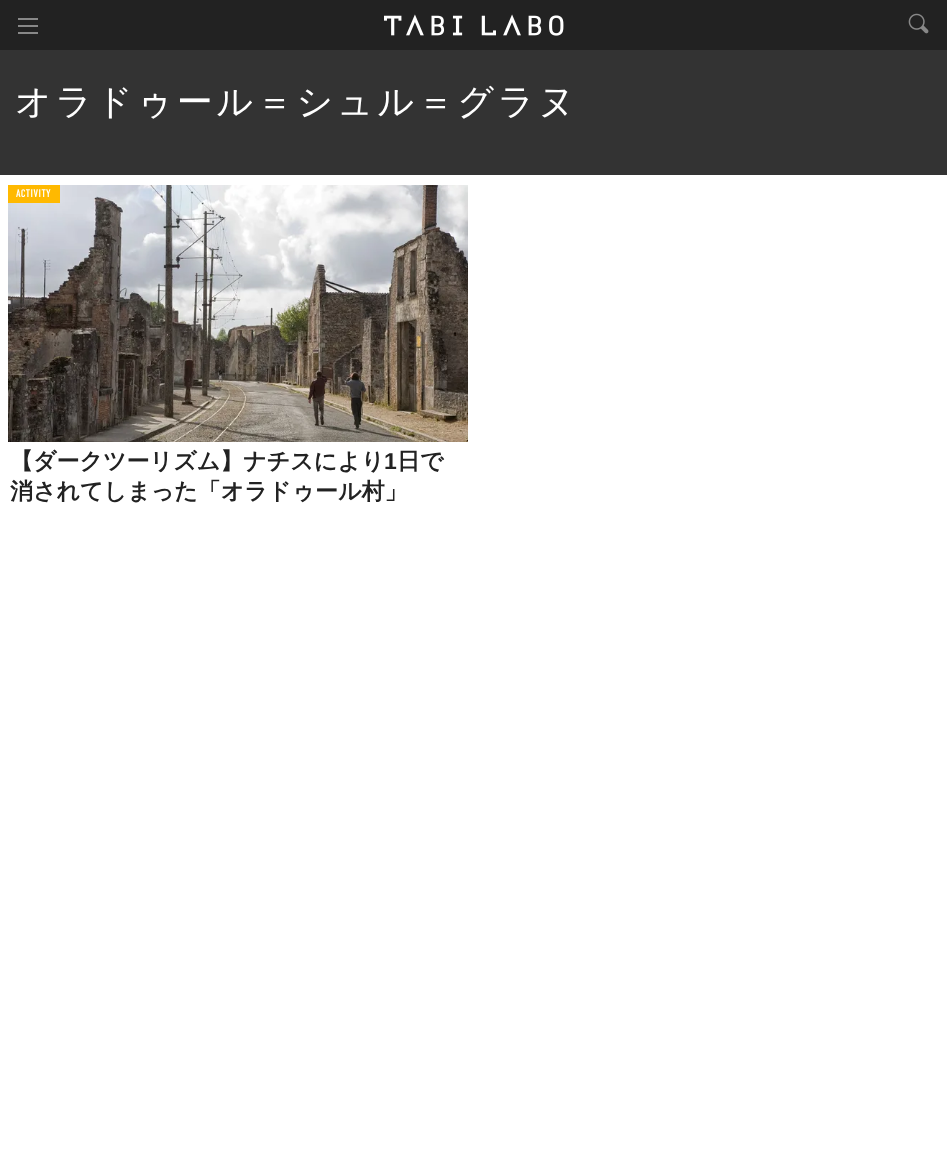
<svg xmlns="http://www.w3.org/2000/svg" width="947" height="1173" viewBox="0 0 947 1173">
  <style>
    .t1 { font: 500 36px WenQuanYi Zen Hei; letter-spacing: 3.6px; fill: #fff; }
    .t2 { font: 11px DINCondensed; letter-spacing: 0.5px; fill: #fff; }
    .t3 { font: bold 23px WenQuanYi Zen Hei; fill: #222; }
    .t4 { font: bold 23px Liberation Sans; fill: #222; }
  </style>
  <rect width="100%" height="100%" fill="#fff"/>
  <rect x="0" y="0" width="947" height="50" fill="#222"/>
  <rect x="18" y="18" width="20" height="2" fill="#888"/>
  <rect x="18" y="25" width="20" height="2" fill="#888"/>
  <rect x="18" y="32" width="20" height="2" fill="#888"/>
  <image x="384" y="14" width="180" height="22" href="images/1.png"/>
  <image x="908" y="13" width="21" height="21" href="images/2.png"/>
  <rect x="0" y="50" width="947" height="125" fill="#333"/>
  <text x="15" y="114" class="t1">オラドゥール＝シュル＝グラヌ</text>
  <image x="8" y="185" width="460" height="257" href="images/3.png"/>
  <rect x="8" y="185" width="52" height="18" fill="#ffb900"/>
  <text x="16" y="197" class="t2">ACTIVITY</text>
  <text x="10" y="469" class="t3">【ダークツーリズム】ナチスにより</text>
  <text x="384" y="469" class="t4">1</text>
  <text x="397" y="469" class="t3">日で</text>
  <text x="10" y="499" class="t3">消されてしまった「オラドゥール村」</text>
</svg>
